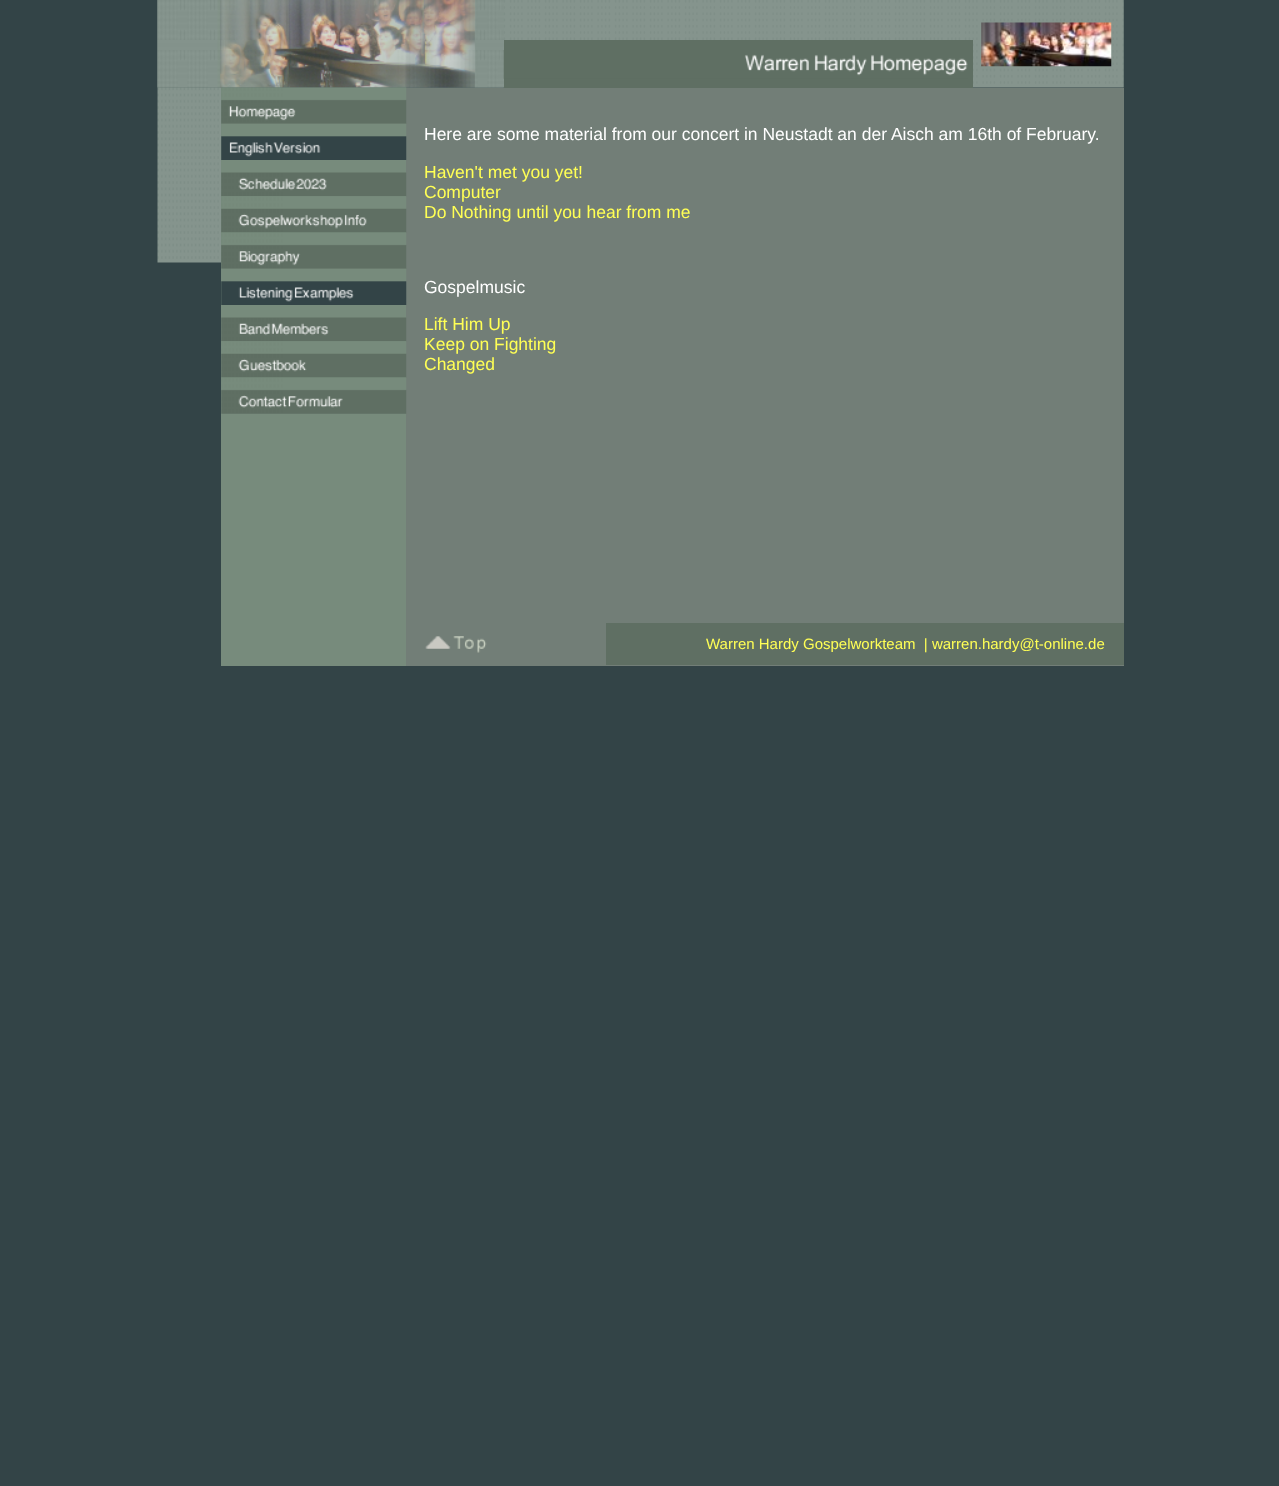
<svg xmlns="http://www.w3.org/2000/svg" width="1279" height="1486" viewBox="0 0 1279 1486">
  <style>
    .t1 { font: 17.5px Liberation Sans; fill: #fff; }
    .t2 { font: 17.5px Liberation Sans; fill: #ff5; }
    .t3 { font: 15px Liberation Sans; fill: #ff5; }
  </style>
  <rect width="100%" height="100%" fill="#334447"/>
  <image x="157" y="0" width="967" height="88" href="images/1.png"/>
  <image x="157" y="87" width="65" height="176" href="images/5.png"/>
  <image x="157" y="0" width="347" height="88" href="images/2.png"/>
  <rect x="504" y="40" width="469" height="48" fill="#5f6f63"/>
  <image x="503" y="50" width="465" height="29" href="images/3.png"/>
  <image x="981" y="22" width="131" height="45" href="images/4.png"/>
  <rect x="221" y="88" width="185" height="578" fill="#778b7c"/>
  <rect x="406" y="88" width="718" height="578" fill="#727e77"/>
  <image x="221" y="87" width="186" height="37" href="images/6.png"/>
  <image x="221" y="123" width="186" height="37" href="images/7.png"/>
  <image x="221" y="172" width="186" height="25" href="images/8.png"/>
  <image x="221" y="196" width="186" height="37" href="images/9.png"/>
  <image x="221" y="232" width="186" height="37" href="images/10.png"/>
  <image x="221" y="268" width="186" height="37" href="images/11.png"/>
  <image x="221" y="317" width="186" height="25" href="images/12.png"/>
  <image x="221" y="341" width="186" height="37" href="images/13.png"/>
  <image x="221" y="377" width="186" height="37" href="images/14.png"/>
  <text x="424" y="140" class="t1">Here are some material from our concert in Neustadt an der Aisch am 16th of February.</text>
  <text x="424" y="178" class="t2">Haven't met you yet!</text>
  <text x="424" y="198" class="t2">Computer</text>
  <text x="424" y="218" class="t2">Do Nothing until you hear from me</text>
  <text x="424" y="293" class="t1">Gospelmusic</text>
  <text x="424" y="330" class="t2">Lift Him Up</text>
  <text x="424" y="350" class="t2">Keep on Fighting</text>
  <text x="424" y="370" class="t2">Changed</text>
  <image x="425" y="636" width="62" height="17" href="images/15.png"/>
  <rect x="606" y="623" width="518" height="42" fill="#5f6f63"/>
  <text x="706" y="649" class="t3" xml:space="preserve">Warren Hardy Gospelworkteam  | warren.hardy@t-online.de</text>
</svg>
